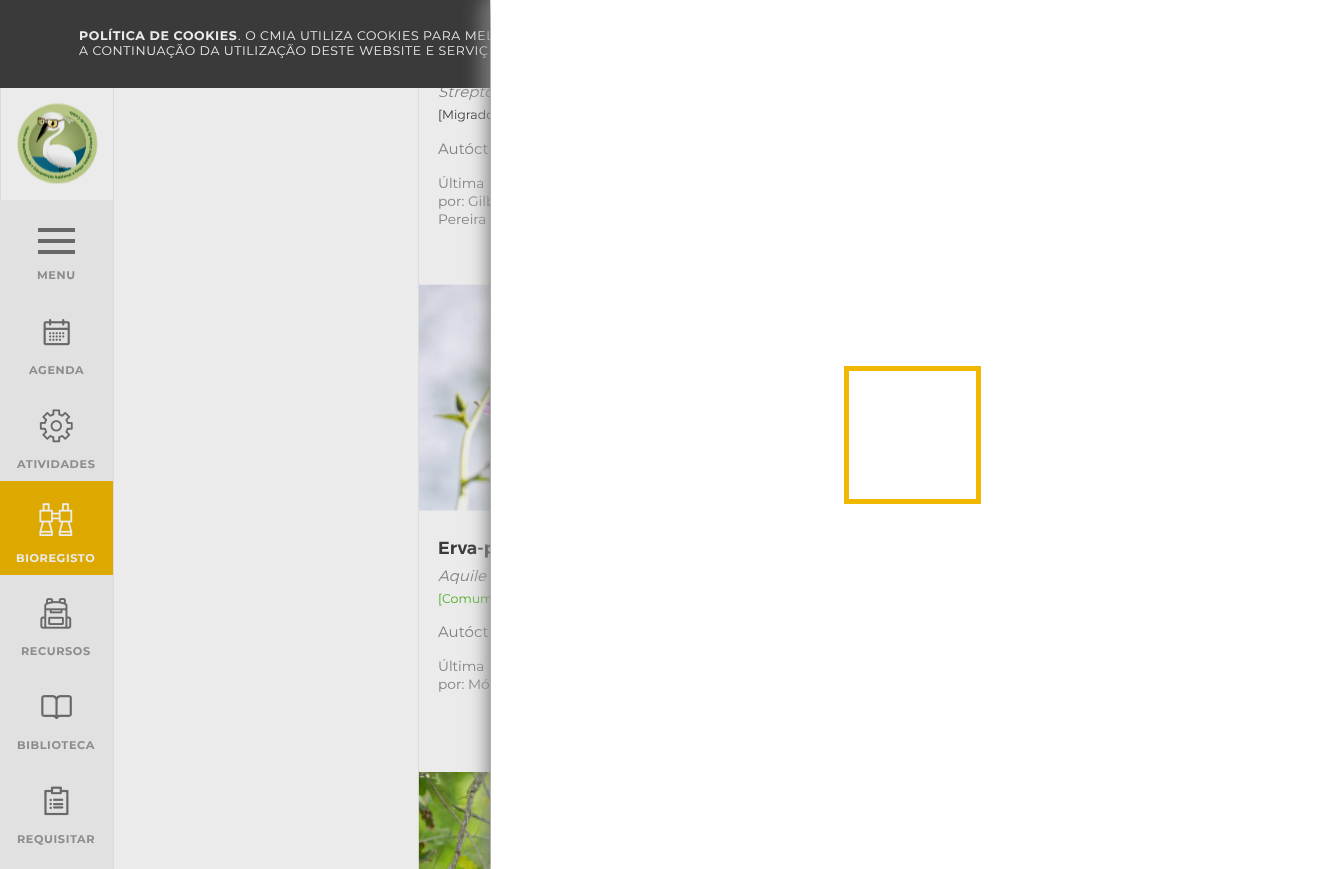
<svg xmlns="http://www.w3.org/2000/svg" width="1333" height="869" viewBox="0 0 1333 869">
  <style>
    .t1 { font: italic 15px Montserrat; fill: #808080; }
    .t2 { font: bold 12.5px Montserrat; letter-spacing: 0.6px; fill: #ebebeb; }
    .t3 { font: 12.5px Montserrat; letter-spacing: 0.6px; fill: #ebebeb; }
    .t4 { font: bold 11.25px Montserrat; letter-spacing: 0.6px; fill: #8c8c8c; }
    .t5 { font: bold 11.25px Montserrat; letter-spacing: 0.6px; fill: #ebebeb; }
    .t6 { font: 12.5px Montserrat; fill: #3a3a3a; }
    .t7 { font: 15px Montserrat; fill: #808080; }
    .t8 { font: 13.75px Montserrat; fill: #808080; }
    .t9 { font: 600 17.5px Montserrat; fill: #3a3a3a; }
    .t10 { font: 12.5px Montserrat; fill: #4fae21; }
  </style>
  <rect width="100%" height="100%" fill="#ebebeb"/>
  <text x="438" y="97" class="t1">Strepto</text>
  <rect x="0" y="0" width="490" height="88" fill="#3a3a3a"/>
  <text x="79" y="40" class="t2">POLÍTICA DE COOKIES</text>
  <text x="238" y="40" class="t3">. O CMIA UTILIZA COOKIES PARA MEL</text>
  <text x="79" y="55" class="t3">A CONTINUAÇÃO DA UTILIZAÇÃO DESTE WEBSITE E SERVIÇ</text>
  <rect x="0" y="88" width="1" height="112" fill="#dbdbdb"/>
  <image x="17" y="103" width="81" height="81" href="images/1.png"/>
  <rect x="0" y="200" width="113" height="669" fill="#e1e1e1"/>
  <rect x="38" y="228" width="37" height="4" fill="#686868"/>
  <rect x="38" y="239" width="37" height="4" fill="#686868"/>
  <rect x="38" y="250" width="37" height="4" fill="#686868"/>
  <text x="37" y="279" class="t4">MENU</text>
  <image x="43" y="319" width="27" height="27" href="images/2.png"/>
  <text x="29" y="374" class="t4">AGENDA</text>
  <image x="39" y="409" width="34" height="34" href="images/3.png"/>
  <text x="17" y="468" class="t4">ATIVIDADES</text>
  <rect x="0" y="481" width="113" height="94" fill="#dda900"/>
  <image x="39" y="503" width="34" height="33" href="images/4.png"/>
  <text x="16" y="562" class="t5">BIOREGISTO</text>
  <image x="40" y="598" width="32" height="31" href="images/5.png"/>
  <text x="21" y="655" class="t4">RECURSOS</text>
  <image x="41" y="695" width="31" height="25" href="images/6.png"/>
  <text x="17" y="749" class="t4">BIBLIOTECA</text>
  <image x="44" y="786" width="25" height="30" href="images/7.png"/>
  <text x="17" y="843" class="t4">REQUISITAR</text>
  <rect x="113" y="88" width="1" height="781" fill="#dbdbdb"/>
  <rect x="418" y="88" width="1" height="781" fill="#dbdbdb"/>
  <text x="438" y="119" class="t6">[Migrado</text>
  <text x="438" y="154" class="t7">Autóct</text>
  <text x="438" y="188" class="t8">Última</text>
  <text x="438" y="206" class="t8">por: Gilb</text>
  <text x="438" y="224" class="t8">Pereira</text>
  <image x="419" y="284" width="71" height="227" href="images/8.png"/>
  <text x="438" y="554" class="t9">Erva-p</text>
  <text x="438" y="581" class="t1">Aquile</text>
  <text x="438" y="603" class="t10">[Comum</text>
  <text x="438" y="637" class="t7">Autóct</text>
  <text x="438" y="671" class="t8">Última</text>
  <text x="438" y="689" class="t8">por: Mó</text>
  <image x="418" y="772" width="72" height="97" href="images/9.png"/>
  <rect x="488" y="-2" width="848" height="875" fill="#ccc" filter="blur(12px)"/>
  <rect x="490" y="0" width="1" height="869" fill="#e5e5e5"/>
  <rect x="491" y="6" width="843" height="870" fill="#00000080" filter="blur(9.5px)"/>
  <rect x="491" y="0" width="842" height="869" fill="#fff"/>
  <rect x="846.5" y="368.5" width="132" height="133" fill="none" stroke="#f0b800" stroke-width="5"/>
</svg>
